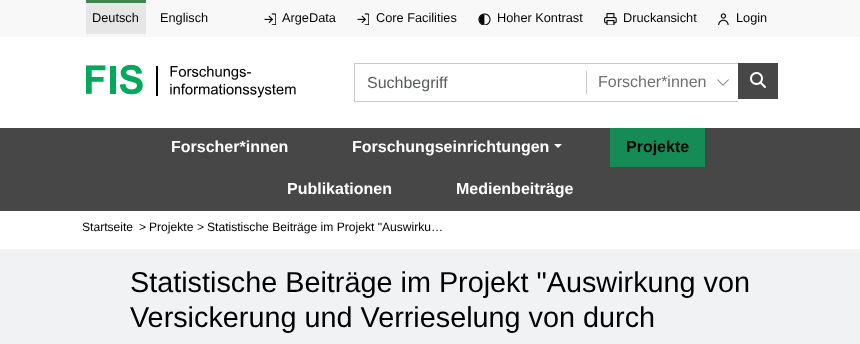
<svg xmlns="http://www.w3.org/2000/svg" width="860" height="344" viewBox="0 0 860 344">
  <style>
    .t1 { font: 12.75px Liberation Sans; fill: #000; }
    .t2 { font: 16px Liberation Sans; fill: #595c5f; }
    .t3 { font: 16px Liberation Sans; fill: #707070; }
    .t4 { font: bold 16px Liberation Sans; fill: #fff; }
    .t5 { font: bold 16px Liberation Sans; fill: #050406; }
    .t6 { font: 12.1px Liberation Sans; fill: #000; }
    .t7 { font: 28.8px Liberation Sans; fill: #000; }
  </style>
  <rect width="100%" height="100%" fill="#fff"/>
  <rect x="0" y="0" width="860" height="37" fill="#f8f8f8"/>
  <rect x="86" y="3" width="60" height="31" fill="#e6e6e6"/>
  <rect x="86" y="0" width="60" height="3" fill="#418453"/>
  <text x="92" y="22" class="t1">Deutsch</text>
  <text x="160" y="22" class="t1">Englisch</text>
  <image x="264" y="13" width="12" height="12" href="images/1.png"/>
  <text x="282" y="22" class="t1">ArgeData</text>
  <image x="357" y="13" width="12" height="12" href="images/1.png"/>
  <text x="376" y="22" class="t1">Core Facilities</text>
  <image x="478" y="13" width="13" height="12" href="images/2.png"/>
  <text x="497" y="22" class="t1">Hoher Kontrast</text>
  <image x="604" y="13" width="13" height="12" href="images/3.png"/>
  <text x="623" y="22" class="t1">Druckansicht</text>
  <image x="718" y="13" width="11" height="12" href="images/4.png"/>
  <text x="736" y="22" class="t1">Login</text>
  <image x="86" y="64" width="210" height="34" href="images/5.png"/>
  <rect x="354" y="63" width="384" height="1" fill="#cac9c8"/>
  <rect x="354" y="101" width="384" height="1" fill="#cac9c8"/>
  <rect x="354" y="63" width="1" height="39" fill="#cac9c8"/>
  <text x="367" y="88" class="t2">Suchbegriff</text>
  <rect x="586" y="71" width="1" height="23" fill="#cac9c8"/>
  <image x="717" y="79" width="12" height="7" href="images/6.png"/>
  <text x="598" y="87" class="t3">Forscher*innen</text>
  <rect x="738" y="63" width="40" height="36" fill="#474747"/>
  <image x="750" y="72" width="16" height="16" href="images/7.png"/>
  <rect x="0" y="128" width="860" height="83" fill="#474747"/>
  <text x="171" y="152" class="t4">Forscher*innen</text>
  <text x="352" y="152" class="t4">Forschungseinrichtungen</text>
  <path d="M554 144H562L558 148Z" fill="#fff"/>
  <rect x="610" y="128" width="95" height="39" fill="#158c55"/>
  <text x="626" y="152" class="t5">Projekte</text>
  <text x="287" y="194" class="t4">Publikationen</text>
  <text x="456" y="194" class="t4">Medienbeiträge</text>
  <rect x="0" y="249" width="860" height="95" fill="#f0f2f4"/>
  <text x="82" y="231" class="t6">Startseite</text>
  <text x="139" y="231" class="t6">&gt;</text>
  <text x="149" y="231" class="t6">Projekte</text>
  <text x="197" y="231" class="t6">&gt;</text>
  <text x="207" y="231" class="t6">Statistische Beiträge im Projekt "Auswirku…</text>
  <text x="130" y="292" class="t7">Statistische Beiträge im Projekt "Auswirkung von</text>
  <text x="130" y="327" class="t7">Versickerung und Verrieselung von durch</text>
</svg>
